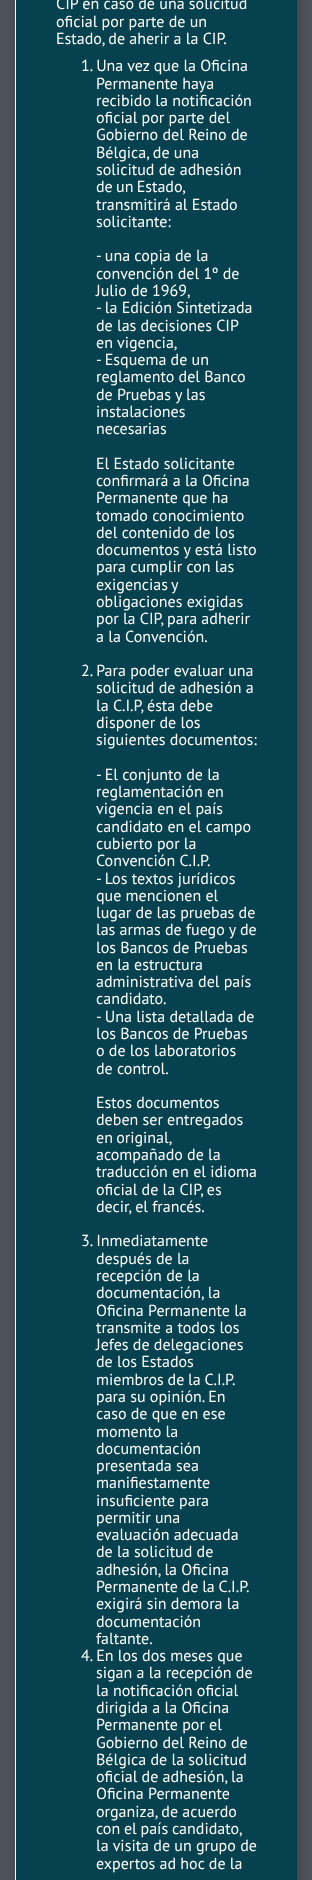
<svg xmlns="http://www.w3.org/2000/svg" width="312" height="1880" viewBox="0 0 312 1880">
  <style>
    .t1 { font: 16px PT Sans; fill: #fff; }
  </style>
  <rect width="100%" height="100%" fill="#4e525a"/>
  <rect x="16" y="-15" width="282" height="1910" fill="#00000033" filter="blur(5px)"/>
  <rect x="16" y="0" width="281" height="1880" fill="#06414f"/>
  <rect x="15" y="0" width="1" height="1880" fill="#fff"/>
  <text x="56" y="9" class="t1">CIP en caso de una solicitud</text>
  <text x="56" y="27" class="t1">oficial por parte de un</text>
  <text x="56" y="44" class="t1">Estado, de aherir a la CIP.</text>
  <text x="81" y="71" class="t1">1. Una vez que la Oficina</text>
  <text x="96" y="89" class="t1">Permanente haya</text>
  <text x="96" y="106" class="t1">recibido la notificación</text>
  <text x="96" y="123" class="t1">oficial por parte del</text>
  <text x="96" y="140" class="t1">Gobierno del Reino de</text>
  <text x="96" y="158" class="t1">Bélgica, de una</text>
  <text x="96" y="175" class="t1">solicitud de adhesión</text>
  <text x="96" y="192" word-spacing="-1" class="t1">de un Estado,</text>
  <text x="96" y="210" class="t1">transmitirá al Estado</text>
  <text x="96" y="227" class="t1">solicitante:</text>
  <text x="96" y="261" class="t1">- una copia de la</text>
  <text x="96" y="279" class="t1">convención del 1º de</text>
  <text x="96" y="296" class="t1">Julio de 1969,</text>
  <text x="96" y="313" class="t1">- la Edición Sintetizada</text>
  <text x="96" y="331" class="t1">de las decisiones CIP</text>
  <text x="96" y="348" class="t1">en vigencia,</text>
  <text x="96" y="365" class="t1">- Esquema de un</text>
  <text x="96" y="382" class="t1">reglamento del Banco</text>
  <text x="96" y="400" class="t1">de Pruebas y las</text>
  <text x="96" y="417" class="t1">instalaciones</text>
  <text x="96" y="434" class="t1">necesarias</text>
  <text x="96" y="469" class="t1">El Estado solicitante</text>
  <text x="96" y="486" class="t1">confirmará a la Oficina</text>
  <text x="96" y="503" class="t1">Permanente que ha</text>
  <text x="96" y="521" class="t1">tomado conocimiento</text>
  <text x="96" y="538" class="t1">del contenido de los</text>
  <text x="96" y="555" class="t1">documentos y está listo</text>
  <text x="96" y="572" class="t1">para cumplir con las</text>
  <text x="96" y="590" word-spacing="-1" class="t1">exigencias y</text>
  <text x="96" y="607" class="t1">obligaciones exigidas</text>
  <text x="96" y="624" class="t1">por la CIP, para adherir</text>
  <text x="96" y="642" class="t1">a la Convención.</text>
  <text x="81" y="676" class="t1">2. Para poder evaluar una</text>
  <text x="96" y="693" class="t1">solicitud de adhesión a</text>
  <text x="96" y="711" class="t1">la C.I.P, ésta debe</text>
  <text x="96" y="728" class="t1">disponer de los</text>
  <text x="96" y="745" class="t1">siguientes documentos:</text>
  <text x="96" y="780" class="t1">- El conjunto de la</text>
  <text x="96" y="797" class="t1">reglamentación en</text>
  <text x="96" y="814" class="t1">vigencia en el país</text>
  <text x="96" y="832" class="t1">candidato en el campo</text>
  <text x="96" y="849" class="t1">cubierto por la</text>
  <text x="96" y="866" class="t1">Convención C.I.P.</text>
  <text x="96" y="884" class="t1">- Los textos jurídicos</text>
  <text x="96" y="901" class="t1">que mencionen el</text>
  <text x="96" y="918" class="t1">lugar de las pruebas de</text>
  <text x="96" y="935" class="t1">las armas de fuego y de</text>
  <text x="96" y="953" class="t1">los Bancos de Pruebas</text>
  <text x="96" y="970" class="t1">en la estructura</text>
  <text x="96" y="987" class="t1">administrativa del país</text>
  <text x="96" y="1004" class="t1">candidato.</text>
  <text x="96" y="1022" class="t1">- Una lista detallada de</text>
  <text x="96" y="1039" class="t1">los Bancos de Pruebas</text>
  <text x="96" y="1056" class="t1">o de los laboratorios</text>
  <text x="96" y="1074" class="t1">de control.</text>
  <text x="96" y="1108" class="t1">Estos documentos</text>
  <text x="96" y="1125" class="t1">deben ser entregados</text>
  <text x="96" y="1143" word-spacing="-1" class="t1">en original,</text>
  <text x="96" y="1160" class="t1">acompañado de la</text>
  <text x="96" y="1177" class="t1">traducción en el idioma</text>
  <text x="96" y="1195" class="t1">oficial de la CIP, es</text>
  <text x="96" y="1212" class="t1">decir, el francés.</text>
  <text x="81" y="1246" class="t1">3. Inmediatamente</text>
  <text x="96" y="1264" class="t1">después de la</text>
  <text x="96" y="1281" class="t1">recepción de la</text>
  <text x="96" y="1298" class="t1">documentación, la</text>
  <text x="96" y="1316" class="t1">Oficina Permanente la</text>
  <text x="96" y="1333" class="t1">transmite a todos los</text>
  <text x="96" y="1350" class="t1">Jefes de delegaciones</text>
  <text x="96" y="1367" class="t1">de los Estados</text>
  <text x="96" y="1385" word-spacing="-0.5" class="t1">miembros de la C.I.P.</text>
  <text x="96" y="1402" class="t1">para su opinión. En</text>
  <text x="96" y="1419" class="t1">caso de que en ese</text>
  <text x="96" y="1437" class="t1">momento la</text>
  <text x="96" y="1454" class="t1">documentación</text>
  <text x="96" y="1471" class="t1">presentada sea</text>
  <text x="96" y="1488" class="t1">manifiestamente</text>
  <text x="96" y="1506" class="t1">insuficiente para</text>
  <text x="96" y="1523" class="t1">permitir una</text>
  <text x="96" y="1540" class="t1">evaluación adecuada</text>
  <text x="96" y="1557" class="t1">de la solicitud de</text>
  <text x="96" y="1575" class="t1">adhesión, la Oficina</text>
  <text x="96" y="1592" word-spacing="-0.5" class="t1">Permanente de la C.I.P.</text>
  <text x="96" y="1609" class="t1">exigirá sin demora la</text>
  <text x="96" y="1627" class="t1">documentación</text>
  <text x="96" y="1644" class="t1">faltante.</text>
  <text x="81" y="1661" class="t1">4. En los dos meses que</text>
  <text x="96" y="1678" class="t1">sigan a la recepción de</text>
  <text x="96" y="1696" class="t1">la notificación oficial</text>
  <text x="96" y="1713" class="t1">dirigida a la Oficina</text>
  <text x="96" y="1730" class="t1">Permanente por el</text>
  <text x="96" y="1748" class="t1">Gobierno del Reino de</text>
  <text x="96" y="1765" class="t1">Bélgica de la solicitud</text>
  <text x="96" y="1782" class="t1">oficial de adhesión, la</text>
  <text x="96" y="1799" class="t1">Oficina Permanente</text>
  <text x="96" y="1817" class="t1">organiza, de acuerdo</text>
  <text x="96" y="1834" word-spacing="-0.5" class="t1">con el país candidato,</text>
  <text x="96" y="1851" class="t1">la visita de un grupo de</text>
  <text x="96" y="1869" class="t1">expertos ad hoc de la</text>
</svg>
